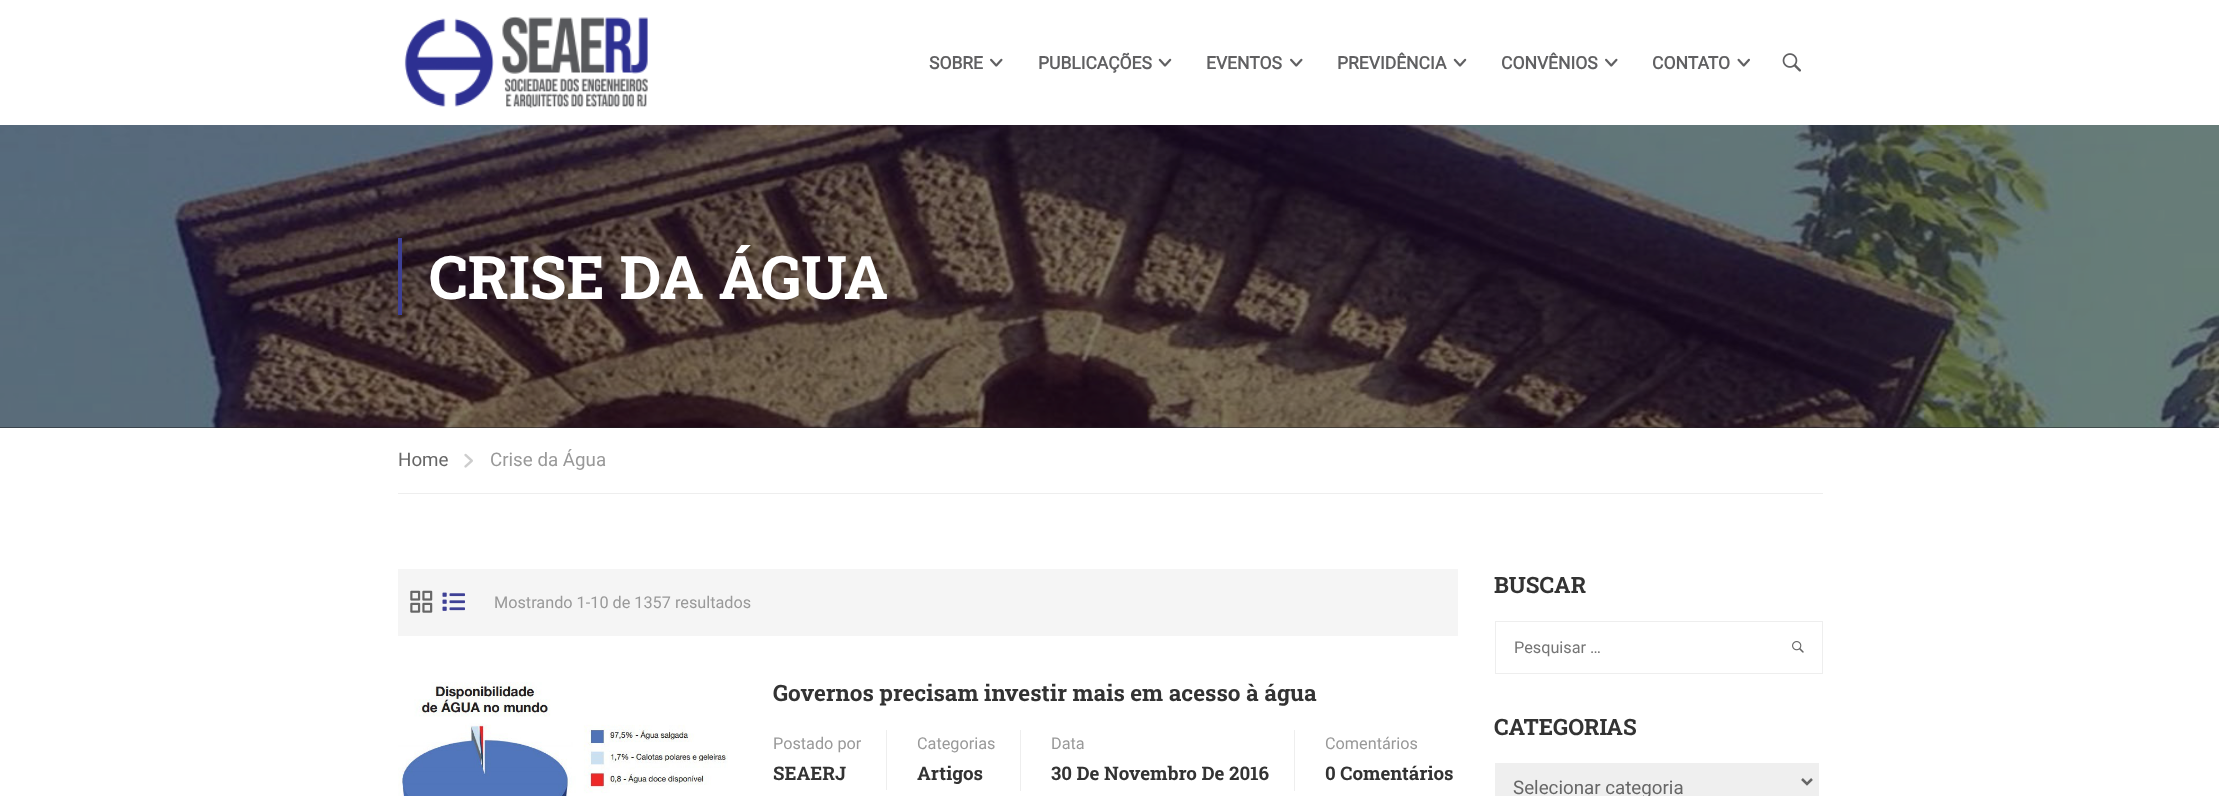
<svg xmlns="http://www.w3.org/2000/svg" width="2219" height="796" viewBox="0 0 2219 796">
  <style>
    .t1 { font: bold 17.5px Roboto; fill: #606062; }
    .t2 { font: bold 60px Roboto Slab; fill: #fff; }
    .t3 { font: 18.75px Roboto; fill: #666; }
    .t4 { font: 18.75px Roboto; fill: #999; }
    .t5 { font: 16.25px Roboto; fill: #999; }
    .t6 { font: bold 22.5px Roboto Slab; fill: #333; }
    .t7 { font: bold 18.75px Roboto Slab; fill: #333; }
    .t8 { font: 16.25px Roboto; fill: #757575; }
  </style>
  <rect width="100%" height="100%" fill="#fff"/>
  <image x="404" y="16" width="245" height="92" href="images/1.png"/>
  <text x="929" y="69" class="t1">SOBRE</text>
  <image x="990" y="58" width="13" height="9" href="images/2.png"/>
  <text x="1038" y="69" class="t1">PUBLICAÇÕES</text>
  <image x="1158" y="58" width="14" height="9" href="images/3.png"/>
  <text x="1206" y="69" class="t1">EVENTOS</text>
  <image x="1290" y="58" width="13" height="9" href="images/2.png"/>
  <text x="1337" y="69" class="t1">PREVIDÊNCIA</text>
  <image x="1453" y="58" width="14" height="9" href="images/3.png"/>
  <text x="1501" y="69" class="t1">CONVÊNIOS</text>
  <image x="1605" y="58" width="13" height="9" href="images/2.png"/>
  <text x="1652" y="69" class="t1">CONTATO</text>
  <image x="1737" y="58" width="13" height="9" href="images/4.png"/>
  <image x="1782" y="53" width="19" height="19" href="images/5.png"/>
  <rect x="0" y="427" width="2219" height="1" fill="#1c1f22"/>
  <image x="0" y="125" width="2219" height="303" href="images/6.png"/>
  <rect x="398" y="238" width="4" height="77" fill="#3e4095"/>
  <text x="429" y="299" class="t2">CRISE DA ÁGUA</text>
  <rect x="398" y="493" width="1425" height="1" fill="#eee"/>
  <text x="398" y="466" class="t3">Home</text>
  <image x="464" y="453" width="9" height="15" href="images/7.png"/>
  <text x="490" y="466" class="t4">Crise da Água</text>
  <rect x="398" y="569" width="1060" height="67" fill="#f5f5f5"/>
  <image x="410" y="590" width="23" height="23" href="images/8.png"/>
  <image x="442" y="592" width="23" height="19" href="images/9.png"/>
  <text x="494" y="608" class="t5">Mostrando 1-10 de 1357 resultados</text>
  <image x="398" y="682" width="330" height="114" href="images/10.png"/>
  <text x="773" y="701" class="t6">Governos precisam investir mais em acesso à água</text>
  <rect x="886" y="730" width="1" height="60" fill="#eee"/>
  <text x="773" y="749" class="t5">Postado por</text>
  <text x="773" y="780" class="t7">SEAERJ</text>
  <rect x="1020" y="730" width="1" height="61" fill="#eee"/>
  <text x="917" y="749" class="t5">Categorias</text>
  <text x="917" y="780" class="t7">Artigos</text>
  <rect x="1294" y="730" width="1" height="61" fill="#eee"/>
  <text x="1051" y="749" class="t5">Data</text>
  <text x="1051" y="780" class="t7">30 De Novembro De 2016</text>
  <text x="1325" y="749" class="t5">Comentários</text>
  <text x="1325" y="780" class="t7">0 Comentários</text>
  <text x="1494" y="593" class="t6">BUSCAR</text>
  <rect x="1495.5" y="621.5" width="327" height="52" fill="none" stroke="#eee"/>
  <text x="1514" y="653" class="t8">Pesquisar …</text>
  <image x="1792" y="641" width="12" height="12" href="images/11.png"/>
  <text x="1494" y="735" class="t6">CATEGORIAS</text>
  <rect x="1495" y="763" width="324" height="33" fill="#efefef"/>
  <path d="M1802 779L1807 784L1812 779" fill="none" stroke="#666" stroke-width="2.5"/>
  <text x="1513" y="794" class="t3">Selecionar categoria</text>
</svg>
